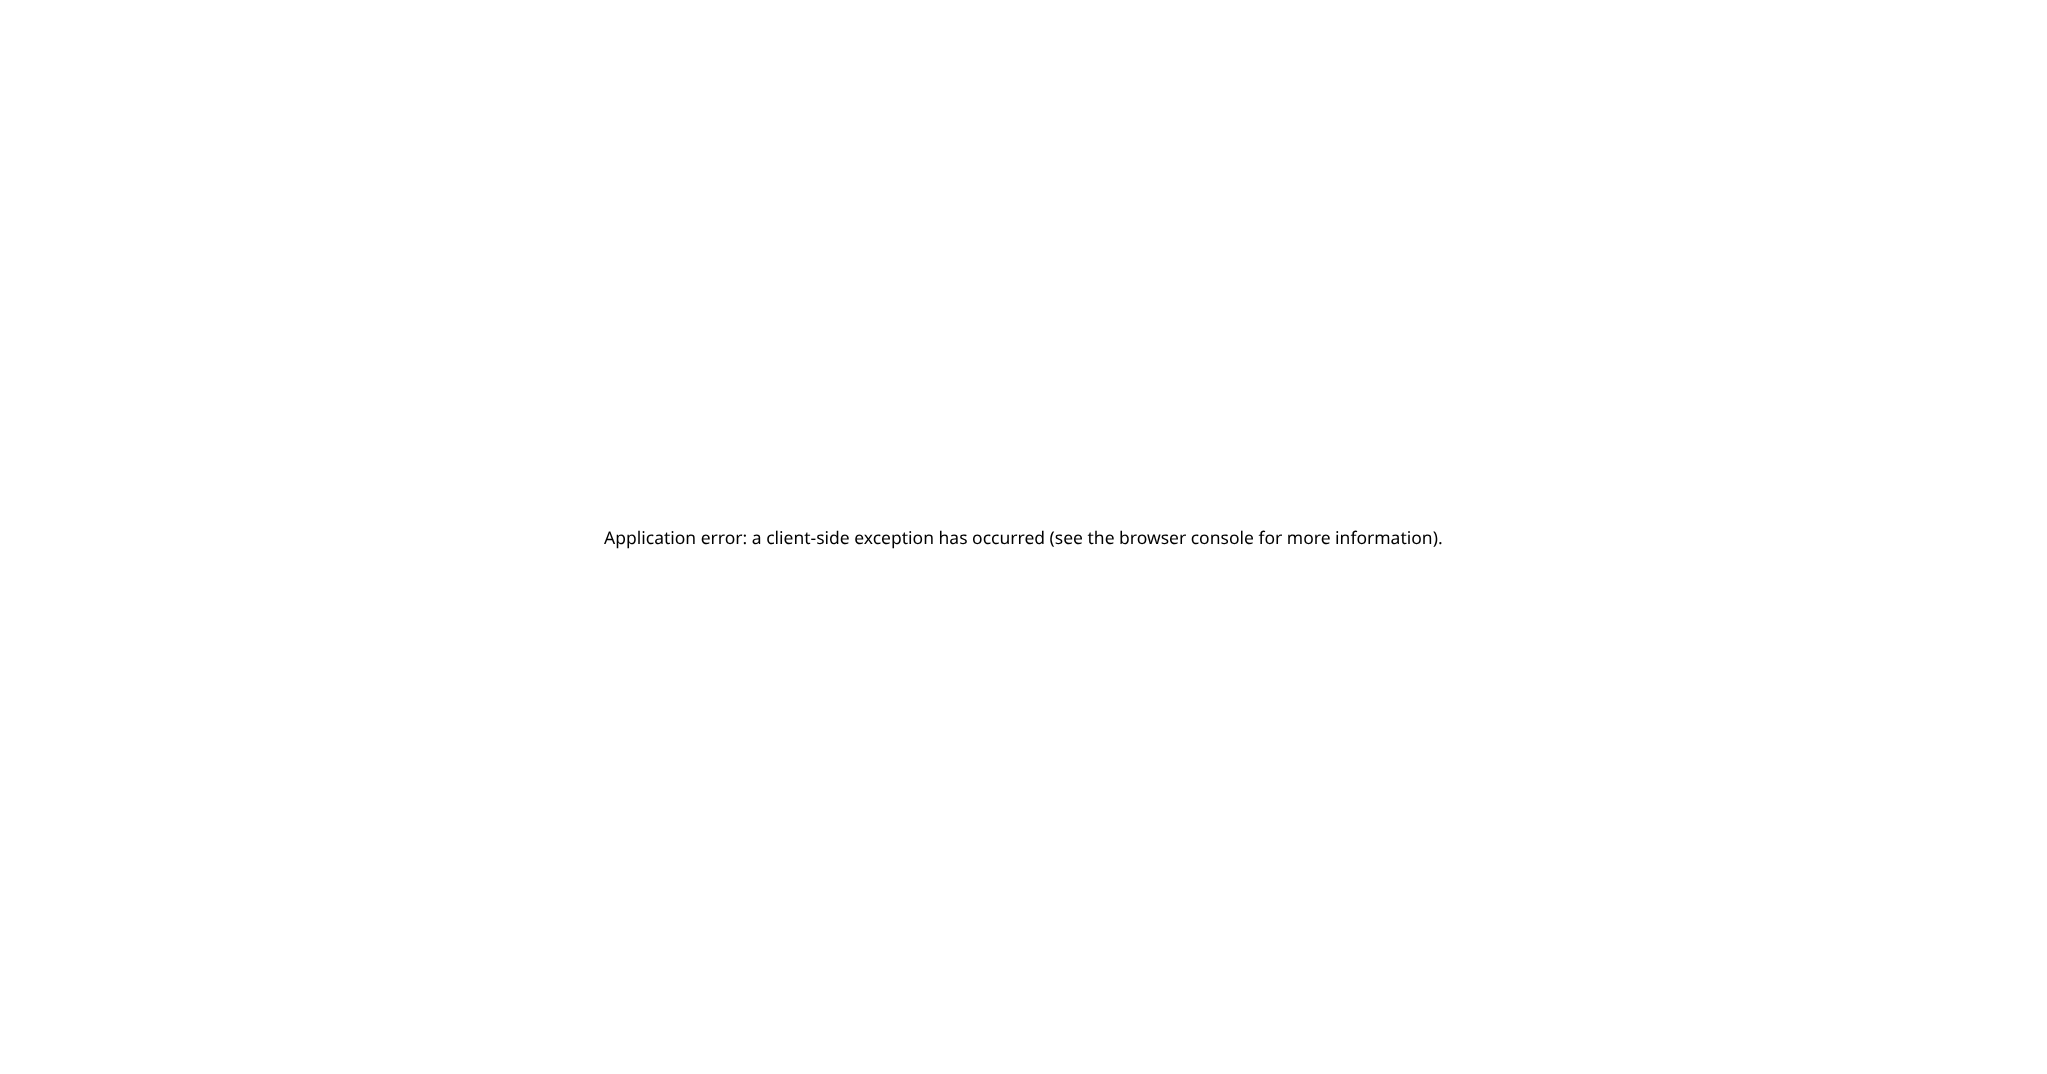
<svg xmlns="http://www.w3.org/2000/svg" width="2047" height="1074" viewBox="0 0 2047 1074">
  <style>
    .t1 { font: 17.5px Noto Sans; fill: #000; }
  </style>
  <rect width="100%" height="100%" fill="#fff"/>
  <text x="604" y="544" class="t1">Application error: a client-side exception has occurred (see the browser console for more information).</text>
</svg>
